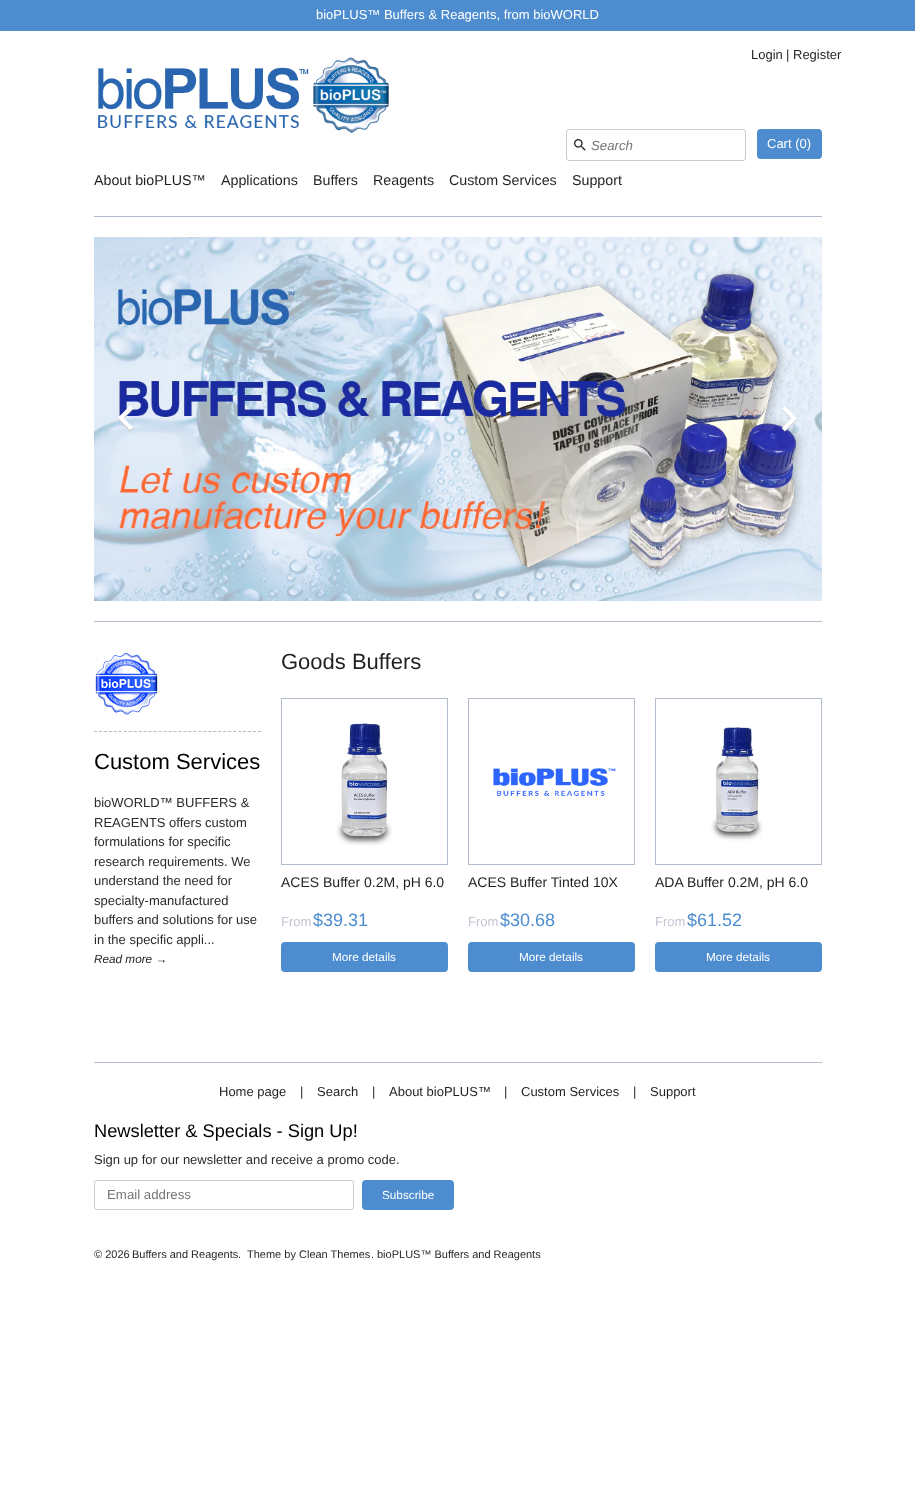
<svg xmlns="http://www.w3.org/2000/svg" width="915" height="1491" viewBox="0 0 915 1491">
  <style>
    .t1 { font: 13px Liberation Sans; fill: #fff; }
    .t2 { font: 13px Liberation Sans; fill: #1f2123; }
    .t3 { font: 13px Liberation Sans; fill: #2b2b2d; }
    .t4 { font: italic 13.25px Liberation Sans; fill: #757575; }
    .t5 { font: 14.25px Liberation Sans; fill: #1f2123; }
    .t6 { font: 22px Liberation Sans; fill: #000; }
    .t7 { font: italic 11.75px Liberation Sans; fill: #1f2123; }
    .t8 { font: 22px Liberation Sans; fill: #1f2123; }
    .t9 { font: 14px Liberation Sans; fill: #1f2123; }
    .t10 { font: 13px Liberation Sans; fill: #c4c4d4; }
    .t11 { font: 18px Liberation Sans; fill: #4d8dcf; }
    .t12 { font: 11.75px Liberation Sans; fill: #fff; }
    .t13 { font: 18.25px Liberation Sans; fill: #000; }
    .t14 { font: 13.25px Liberation Sans; fill: #757575; }
    .t15 { font: 11px Liberation Sans; fill: #2b2b2d; }
    .t16 { font: 11px Liberation Sans; fill: #1f2123; }
  </style>
  <rect width="100%" height="100%" fill="#fff"/>
  <rect x="0" y="0" width="915" height="31" fill="#4d8dcf"/>
  <text x="316" y="19" class="t1">bioPLUS™ Buffers &amp; Reagents, from bioWORLD</text>
  <text x="751" y="59" class="t2">Login</text>
  <text x="786" y="59" class="t3">|</text>
  <text x="793" y="59" class="t2">Register</text>
  <image x="98" y="57" width="291" height="76" href="images/1.png"/>
  <rect x="566.5" y="129.5" width="179" height="31" rx="2.5" fill="none" stroke="#ccc"/>
  <image x="574" y="139" width="12" height="12" href="images/2.png"/>
  <text x="591" y="150" class="t4">Search</text>
  <rect x="757" y="129" width="65" height="30" rx="4" fill="#4d8dcf"/>
  <text x="767" y="148" class="t1">Cart (0)</text>
  <rect x="94" y="216" width="728" height="1" fill="#b1bdca"/>
  <text x="94" y="185" class="t5">About bioPLUS™</text>
  <text x="221" y="185" class="t5">Applications</text>
  <text x="313" y="185" class="t5">Buffers</text>
  <text x="373" y="185" class="t5">Reagents</text>
  <text x="449" y="185" class="t5">Custom Services</text>
  <text x="572" y="185" class="t5">Support</text>
  <rect x="94" y="621" width="728" height="1" fill="#b1bdca"/>
  <image x="94" y="237" width="728" height="364" href="images/3.png"/>
  <image x="118" y="405" width="15" height="27" href="images/4.png"/>
  <image x="782" y="406" width="16" height="26" href="images/5.png"/>
  <path d="M94 731.5H261" fill="none" stroke="#b1bdca" stroke-dasharray="3 1.97"/>
  <image x="95" y="653" width="63" height="62" href="images/6.png"/>
  <text x="94" y="769" class="t6">Custom Services</text>
  <text x="94" y="807" class="t3">bioWORLD™ BUFFERS &amp;</text>
  <text x="94" y="827" class="t3">REAGENTS offers custom</text>
  <text x="94" y="846" class="t3">formulations for specific</text>
  <text x="94" y="866" class="t3">research requirements. We</text>
  <text x="94" y="885" class="t3">understand the need for</text>
  <text x="94" y="905" class="t3">specialty-manufactured</text>
  <text x="94" y="924" class="t3">buffers and solutions for use</text>
  <text x="94" y="944" class="t3">in the specific appli...</text>
  <text x="94" y="963" class="t7">Read more →</text>
  <text x="281" y="669" class="t8">Goods Buffers</text>
  <rect x="281.5" y="698.5" width="166" height="166" fill="none" stroke="#b1bdca"/>
  <image x="336" y="723" width="56" height="123" href="images/7.png"/>
  <text x="281" y="887" class="t9">ACES Buffer 0.2M, pH 6.0</text>
  <text x="281" y="926" class="t10">From</text>
  <text x="313" y="926" class="t11">$39.31</text>
  <rect x="281" y="942" width="167" height="30" rx="4" fill="#4d8dcf"/>
  <text x="332" y="961" class="t12">More details</text>
  <rect x="468.5" y="698.5" width="166" height="166" fill="none" stroke="#b1bdca"/>
  <image x="493" y="768" width="123" height="28" href="images/8.png"/>
  <text x="468" y="887" class="t9">ACES Buffer Tinted 10X</text>
  <text x="468" y="926" class="t10">From</text>
  <text x="500" y="926" class="t11">$30.68</text>
  <rect x="468" y="942" width="167" height="30" rx="4" fill="#4d8dcf"/>
  <text x="519" y="961" class="t12">More details</text>
  <rect x="655.5" y="698.5" width="166" height="166" fill="none" stroke="#b1bdca"/>
  <image x="711" y="725" width="52" height="116" href="images/9.png"/>
  <text x="655" y="887" class="t9">ADA Buffer 0.2M, pH 6.0</text>
  <text x="655" y="926" class="t10">From</text>
  <text x="687" y="926" class="t11">$61.52</text>
  <rect x="655" y="942" width="167" height="30" rx="4" fill="#4d8dcf"/>
  <text x="706" y="961" class="t12">More details</text>
  <rect x="94" y="1062" width="728" height="1" fill="#b1bdca"/>
  <text x="219" y="1096" class="t2">Home page</text>
  <text x="300" y="1096" class="t3">|</text>
  <text x="317" y="1096" class="t2">Search</text>
  <text x="372" y="1096" class="t3">|</text>
  <text x="389" y="1096" class="t2">About bioPLUS™</text>
  <text x="504" y="1096" class="t3">|</text>
  <text x="521" y="1096" class="t2">Custom Services</text>
  <text x="633" y="1096" class="t3">|</text>
  <text x="650" y="1096" class="t2">Support</text>
  <text x="94" y="1137" class="t13">Newsletter &amp; Specials - Sign Up!</text>
  <text x="94" y="1164" class="t3">Sign up for our newsletter and receive a promo code.</text>
  <rect x="94.5" y="1180.5" width="259" height="29" rx="2.5" fill="none" stroke="#ccc"/>
  <text x="107" y="1199" class="t14">Email address</text>
  <rect x="362" y="1180" width="92" height="30" rx="4" fill="#4d8dcf"/>
  <text x="382" y="1199" class="t12">Subscribe</text>
  <text x="94" y="1258" class="t15">© 2026</text>
  <text x="132" y="1258" class="t16">Buffers and Reagents</text>
  <text x="238" y="1258" class="t15">.</text>
  <text x="247" y="1258" class="t15">Theme by</text>
  <text x="299" y="1258" class="t16">Clean Themes</text>
  <text x="371" y="1258" class="t15">.</text>
  <text x="377" y="1258" class="t16">bioPLUS™ Buffers and Reagents</text>
</svg>
